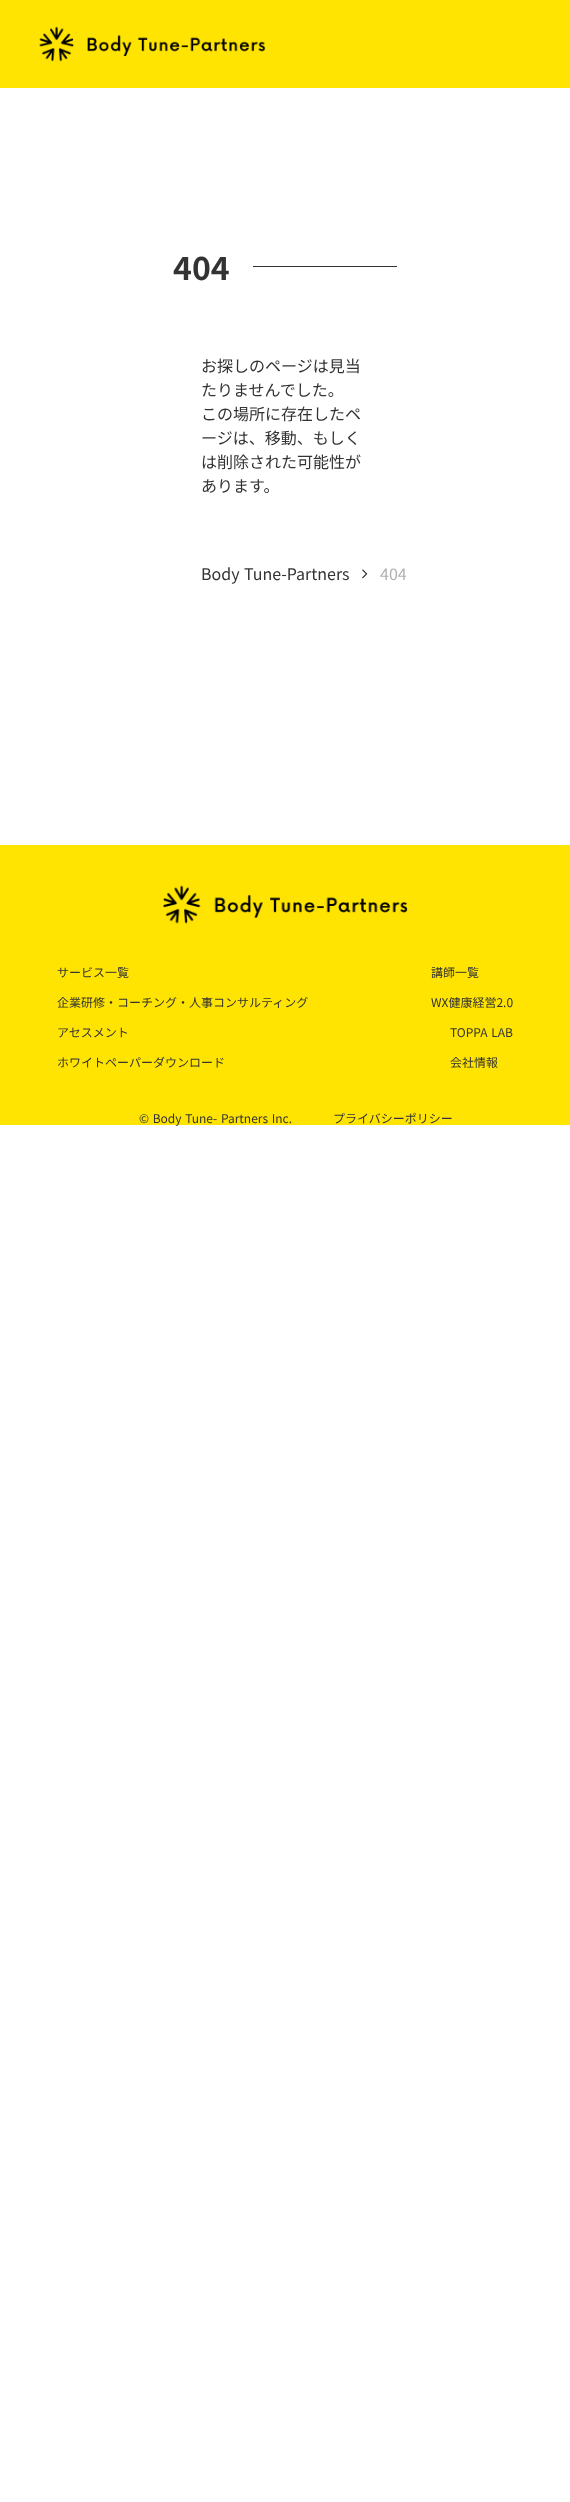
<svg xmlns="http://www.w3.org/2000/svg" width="570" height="2502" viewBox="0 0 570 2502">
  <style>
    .t1 { font: bold 32px Noto Sans JP; fill: #333; }
    .t2 { font: 16px Noto Sans JP; fill: #333; }
    .t3 { font: 16px Noto Sans JP; fill: #b1b1b1; }
    .t4 { font: 12px Noto Sans JP; fill: #333; }
  </style>
  <rect width="100%" height="100%" fill="#fff"/>
  <rect x="0" y="0" width="570" height="88" fill="#ffe401"/>
  <image x="39" y="26" width="227" height="36" href="images/1.png"/>
  <text x="173" y="280" class="t1">404</text>
  <rect x="253" y="266" width="144" height="1" fill="#333"/>
  <text x="201" y="372" class="t2">お探しのページは見当</text>
  <text x="201" y="396" class="t2">たりませんでした。</text>
  <text x="201" y="420" class="t2">この場所に存在したペ</text>
  <text x="201" y="444" class="t2">ージは、移動、もしく</text>
  <text x="201" y="468" class="t2">は削除された可能性が</text>
  <text x="201" y="492" class="t2">あります。</text>
  <text x="201" y="580" word-spacing="1" class="t2">Body Tune-Partners</text>
  <image x="362" y="569" width="6" height="10" href="images/2.png"/>
  <text x="380" y="580" class="t3">404</text>
  <rect x="0" y="845" width="570" height="280" fill="#ffe401"/>
  <image x="163" y="885" width="245" height="39" href="images/3.png"/>
  <text x="57" y="977" class="t4">サービス一覧</text>
  <text x="57" y="1007" class="t4">企業研修・コーチング・人事コンサルティング</text>
  <text x="431" y="977" class="t4">講師一覧</text>
  <text x="431" y="1007" class="t4">WX健康経営2.0</text>
  <text x="57" y="1037" class="t4">アセスメント</text>
  <text x="57" y="1067" class="t4">ホワイトペーパーダウンロード</text>
  <text x="450" y="1037" word-spacing="1" class="t4">TOPPA LAB</text>
  <text x="450" y="1067" class="t4">会社情報</text>
  <text x="139" y="1123" word-spacing="1" class="t4">©︎ Body Tune- Partners Inc.</text>
  <text x="333" y="1123" class="t4">プライバシーポリシー</text>
</svg>
